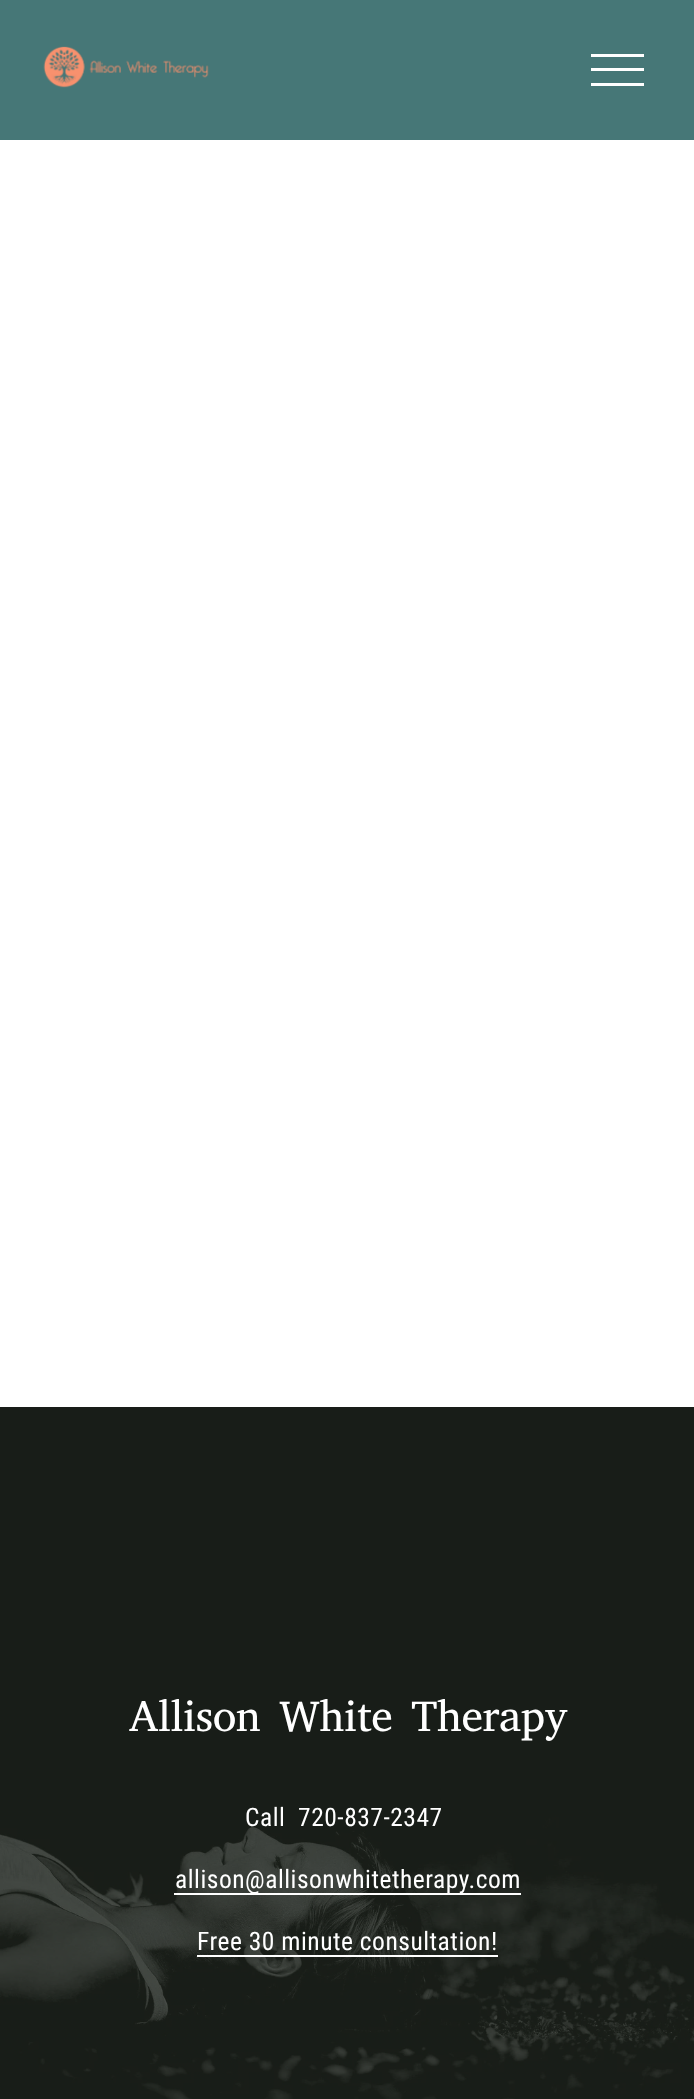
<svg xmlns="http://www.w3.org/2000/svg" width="694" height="2099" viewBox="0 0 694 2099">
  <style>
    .t1 { font: 43.5px Abyssinica SIL; letter-spacing: -0.4px; fill: #fff; }
    .t2 { font: 25.5px Roboto Condensed; letter-spacing: 0.5px; fill: #fff; }
  </style>
  <rect width="100%" height="100%" fill="#fff"/>
  <rect x="0" y="0" width="694" height="140" fill="#467777"/>
  <image x="43" y="46" width="166" height="42" href="images/1.png"/>
  <rect x="591" y="54" width="53" height="3" fill="#fff"/>
  <rect x="591" y="68" width="53" height="3" fill="#fff"/>
  <rect x="591" y="83" width="53" height="3" fill="#fff"/>
  <image x="0" y="1407" width="694" height="692" href="images/2.png"/>
  <text x="129" y="1731" class="t1">Allison White Therapy</text>
  <text x="245" y="1826" class="t2" xml:space="preserve">Call  720-837-2347</text>
  <rect x="174" y="1893" width="347" height="2" fill="#fff"/>
  <text x="175" y="1888" class="t2">allison@allisonwhitetherapy.com</text>
  <text x="197" y="1950" class="t2">Free 30 minute consultation!</text>
  <rect x="197" y="1955" width="301" height="2" fill="#fff"/>
</svg>
